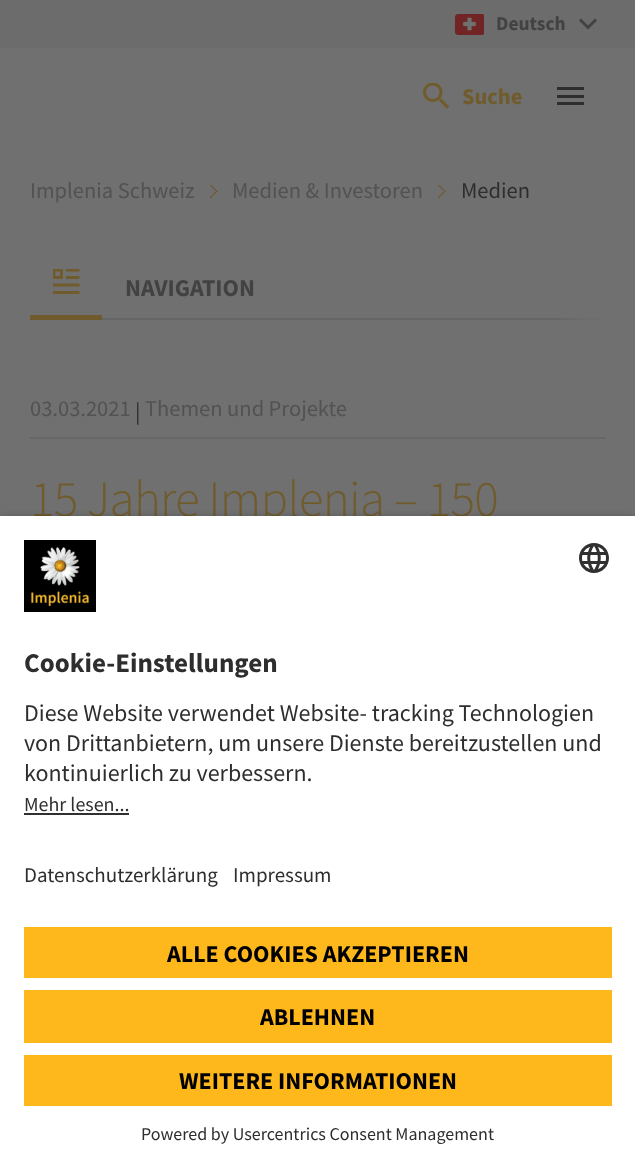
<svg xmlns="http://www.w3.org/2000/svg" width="635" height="1168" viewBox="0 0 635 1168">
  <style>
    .t1 { font: bold 19.5px Source Sans Pro; fill: #424242; }
    .t2 { font: bold 22.5px Source Sans Pro; fill: #705b2c; }
    .t3 { font: 22.5px Source Sans Pro; fill: #525252; }
    .t4 { font: 22.5px Source Sans Pro; fill: #2e2e2e; }
    .t5 { font: bold 24px Source Sans Pro; fill: #424242; }
    .t6 { font: 300 51px Source Sans Pro; letter-spacing: -0.75px; fill: #705b2c; }
    .t7 { font: bold 27px Source Sans Pro; fill: #2e2e2e; }
    .t8 { font: 24px Source Sans Pro; fill: #2e2e2e; }
    .t9 { font: 20px Source Sans Pro; fill: #2e2e2e; }
    .t10 { font: 21px Source Sans Pro; fill: #2e2e2e; }
    .t11 { font: bold 24px Source Sans Pro; fill: #000; }
    .t12 { font: 18px Source Sans Pro; fill: #2e2e2e; }
  </style>
  <defs>
    <linearGradient id="g1" gradientUnits="userSpaceOnUse" x1="606" y1="308" x2="546" y2="308"><stop offset="0" stop-color="#707070"/><stop offset="1" stop-color="#707070" stop-opacity="0"/></linearGradient>
  </defs>
  <rect width="100%" height="100%" fill="#707070"/>
  <rect x="0" y="0" width="635" height="48" fill="#6c6c6c"/>
  <image x="455" y="14" width="29" height="21" href="images/1.png"/>
  <text x="496" y="30" class="t1">Deutsch</text>
  <path d="M581 18.5L588 25.5L595 18.5L597 20.5L588 29.5L579 20.5Z" fill="#424242"/>
  <image x="423" y="83" width="27" height="26" href="images/2.png"/>
  <text x="462" y="104" class="t2">Suche</text>
  <rect x="557" y="87" width="27" height="3" fill="#2e2e2e"/>
  <rect x="557" y="95" width="27" height="3" fill="#2e2e2e"/>
  <rect x="557" y="102" width="27" height="3" fill="#2e2e2e"/>
  <text x="30" y="198" class="t3">Implenia Schweiz</text>
  <image x="210" y="185" width="8" height="13" href="images/3.png"/>
  <text x="232" y="198" class="t3">Medien &amp; Investoren</text>
  <image x="438" y="185" width="8" height="13" href="images/3.png"/>
  <text x="461" y="198" class="t4">Medien</text>
  <image x="53" y="269" width="27" height="25" href="images/4.png"/>
  <rect x="30" y="315" width="72" height="5" fill="#705b2c"/>
  <text x="125" y="296" class="t5">NAVIGATION</text>
  <rect x="102" y="318" width="504" height="2" fill="#656565"/>
  <rect x="561" y="318" width="45" height="2" fill="url(#g1)"/>
  <rect x="30" y="437" width="576" height="2" fill="#686868"/>
  <text x="30" y="416" class="t3">03.03.2021</text>
  <text x="135" y="419" class="t4">|</text>
  <text x="145" y="416" class="t3">Themen und Projekte</text>
  <text x="30" y="516" class="t6">15 Jahre Implenia – 150</text>
  <rect x="0" y="521" width="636" height="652" fill="#000000cc" filter="blur(5px)"/>
  <rect x="0" y="516" width="635" height="652" fill="#fff"/>
  <image x="24" y="540" width="72" height="72" href="images/5.png"/>
  <image x="579" y="543" width="30" height="30" href="images/6.png"/>
  <text x="24" y="672" class="t7">Cookie-Einstellungen</text>
  <text x="24" y="721" class="t8">Diese Website verwendet Website- tracking Technologien</text>
  <text x="24" y="751" class="t8">von Drittanbietern, um unsere Dienste bereitzustellen und</text>
  <text x="24" y="781" class="t8">kontinuierlich zu verbessern.</text>
  <text x="24" y="811" class="t9">Mehr lesen...</text>
  <rect x="24" y="813" width="105" height="2" fill="#303030"/>
  <text x="24" y="882" class="t10">Datenschutzerklärung</text>
  <text x="233" y="882" class="t10">Impressum</text>
  <rect x="24" y="927" width="588" height="51" fill="#ffb81c"/>
  <text x="167" y="962" class="t11">ALLE COOKIES AKZEPTIEREN</text>
  <rect x="24" y="990" width="588" height="53" fill="#ffb81c"/>
  <text x="260" y="1025" class="t11">ABLEHNEN</text>
  <rect x="24" y="1055" width="588" height="51" fill="#ffb81c"/>
  <text x="179" y="1089" class="t11">WEITERE INFORMATIONEN</text>
  <text x="141" y="1140" class="t12">Powered by Usercentrics Consent Management</text>
</svg>
